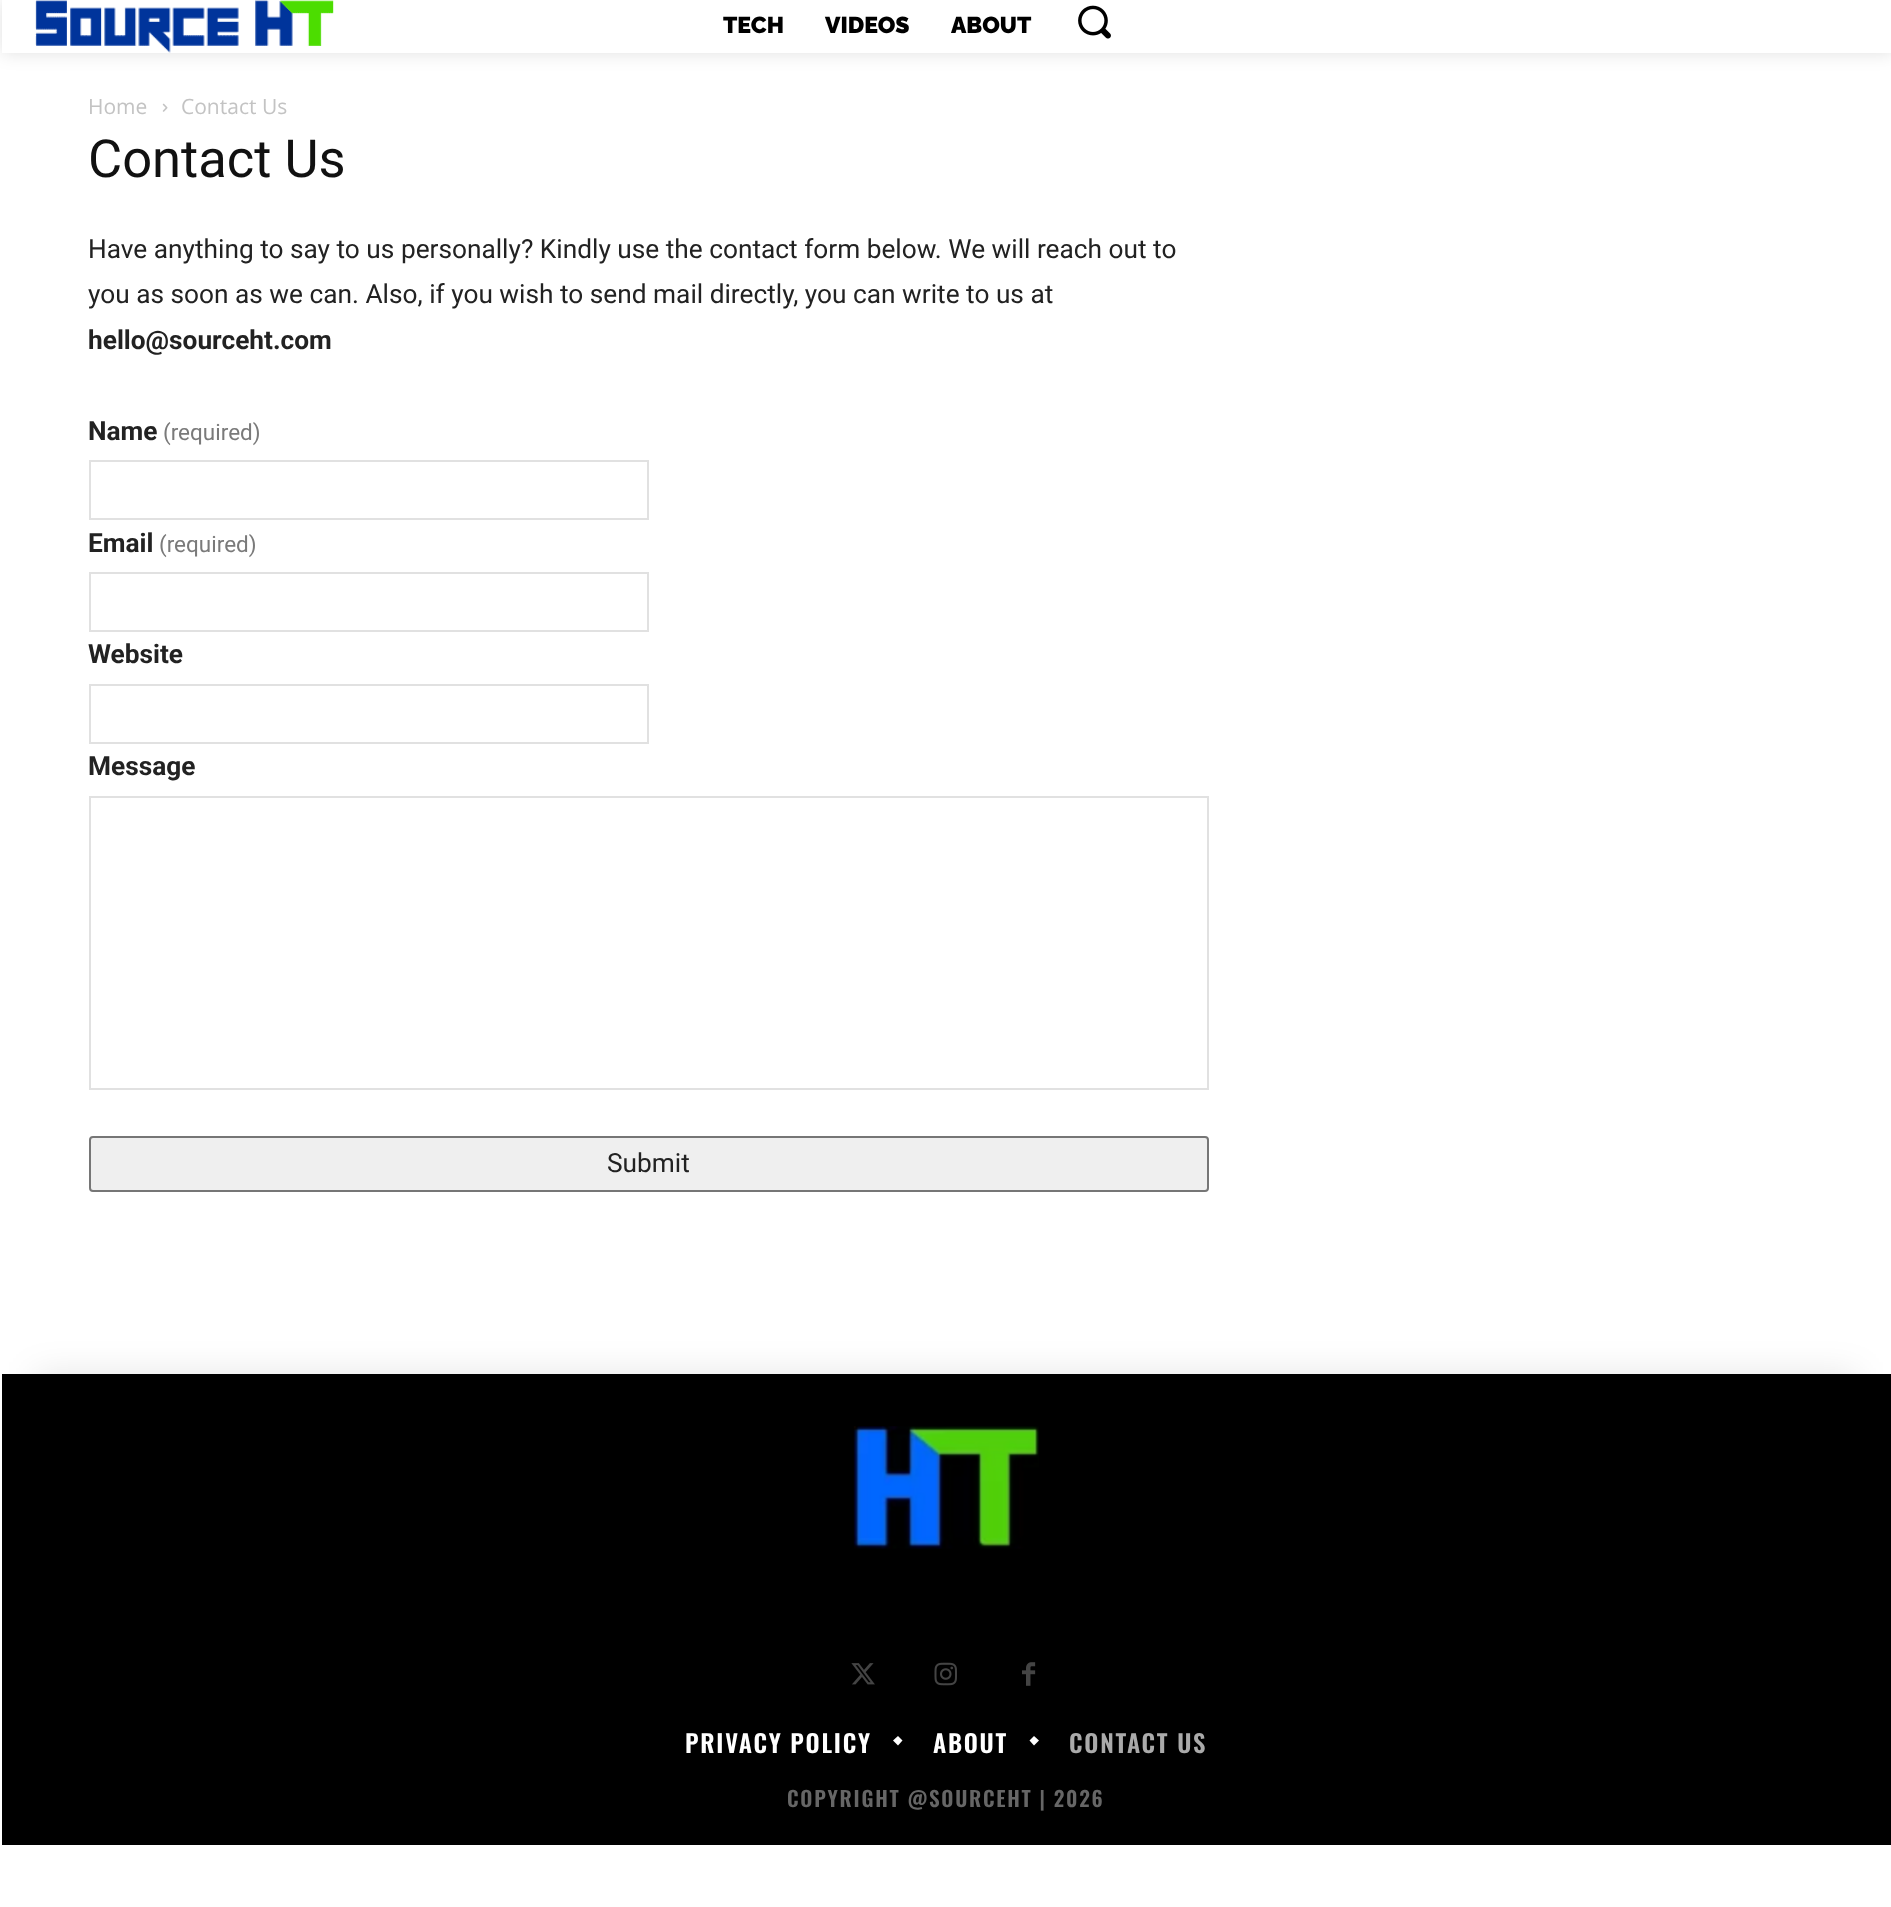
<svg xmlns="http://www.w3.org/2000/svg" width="1891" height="1907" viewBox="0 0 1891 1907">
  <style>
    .t1 { font: 900 23px Raleway; fill: #000; }
    .t2 { font: 21px Open Sans; fill: #c3c3c3; }
    .t3 { font: 52.5px Roboto; fill: #111; }
    .t4 { font: 26.25px Roboto; fill: #222; }
    .t5 { font: bold 26.25px Roboto; fill: #222; }
    .t6 { font: 22.5px Roboto; fill: #7a7a7a; }
    .t7 { font: 600 24.5px Oswald; letter-spacing: 1.75px; fill: #fff; }
    .t8 { font: 600 24.5px Oswald; letter-spacing: 1.75px; fill: #aaa; }
    .t9 { font: 600 21px Oswald; letter-spacing: 1.75px; fill: #666; }
  </style>
  <defs>
    <clipPath id="clip1"><path d="M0 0H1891V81H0ZM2 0H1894V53H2Z" clip-rule="evenodd"/></clipPath>
    <clipPath id="clip2"><rect x="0" y="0" width="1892" height="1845"/></clipPath>
  </defs>
  <rect width="100%" height="100%" fill="#fff"/>
  <image x="35" y="0" width="299" height="53" href="images/1.png"/>
  <g clip-path="url(#clip1)">
    <rect x="2" y="0" width="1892" height="53" fill="#0000001f" filter="blur(9px)"/>
  </g>
  <text x="723" y="33" class="t1">TECH</text>
  <text x="825" y="33" class="t1">VIDEOS</text>
  <text x="951" y="33" class="t1">ABOUT</text>
  <image x="1078" y="5" width="33" height="34" href="images/2.png"/>
  <text x="88" y="114" class="t2">Home</text>
  <image x="162" y="103" width="6" height="9" href="images/3.png"/>
  <text x="181" y="114" class="t2">Contact Us</text>
  <text x="88" y="177" class="t3">Contact Us</text>
  <text x="88" y="258" class="t4">Have anything to say to us personally? Kindly use the contact form below. We will reach out to</text>
  <text x="88" y="303" class="t4">you as soon as we can. Also, if you wish to send mail directly, you can write to us at</text>
  <text x="88" y="349" class="t5">hello@sourceht.com</text>
  <text x="88" y="440" class="t5">Name</text>
  <text x="163" y="440" class="t6">(required)</text>
  <rect x="90" y="461" width="558" height="58" fill="none" stroke="#e1e1e1" stroke-width="2"/>
  <text x="88" y="552" class="t5">Email</text>
  <text x="159" y="552" class="t6">(required)</text>
  <rect x="90" y="573" width="558" height="58" fill="none" stroke="#e1e1e1" stroke-width="2"/>
  <text x="88" y="663" class="t5">Website</text>
  <rect x="90" y="685" width="558" height="58" fill="none" stroke="#e1e1e1" stroke-width="2"/>
  <text x="88" y="775" class="t5">Message</text>
  <rect x="90" y="797" width="1118" height="292" fill="none" stroke="#e1e1e1" stroke-width="2"/>
  <rect x="90" y="1137" width="1118" height="54" rx="3" fill="#efefef" stroke="#767676" stroke-width="2"/>
  <text x="607" y="1172" class="t4">Submit</text>
  <g clip-path="url(#clip2)">
    <rect x="35" y="1374" width="1822" height="471" fill="#0000001a" filter="blur(17.5px)"/>
  </g>
  <rect x="2" y="1374" width="1889" height="471" fill="#000"/>
  <image x="853" y="1426" width="186" height="123" href="images/4.png"/>
  <image x="851" y="1663" width="24" height="22" href="images/5.png"/>
  <image x="934" y="1662" width="23" height="24" href="images/6.png"/>
  <image x="1022" y="1662" width="14" height="24" href="images/7.png"/>
  <text x="685" y="1753" class="t7">PRIVACY POLICY</text>
  <path d="M902.5 1740.5L898 1745.5L893 1740.5L898 1736Z" fill="#fff"/>
  <text x="933" y="1753" class="t7">ABOUT</text>
  <path d="M1039 1740.5L1034 1745.5L1029.5 1740.5L1034 1736Z" fill="#fff"/>
  <text x="1069" y="1753" class="t8">CONTACT US</text>
  <text x="787" y="1807" class="t9">COPYRIGHT @SOURCEHT | 2026</text>
</svg>
